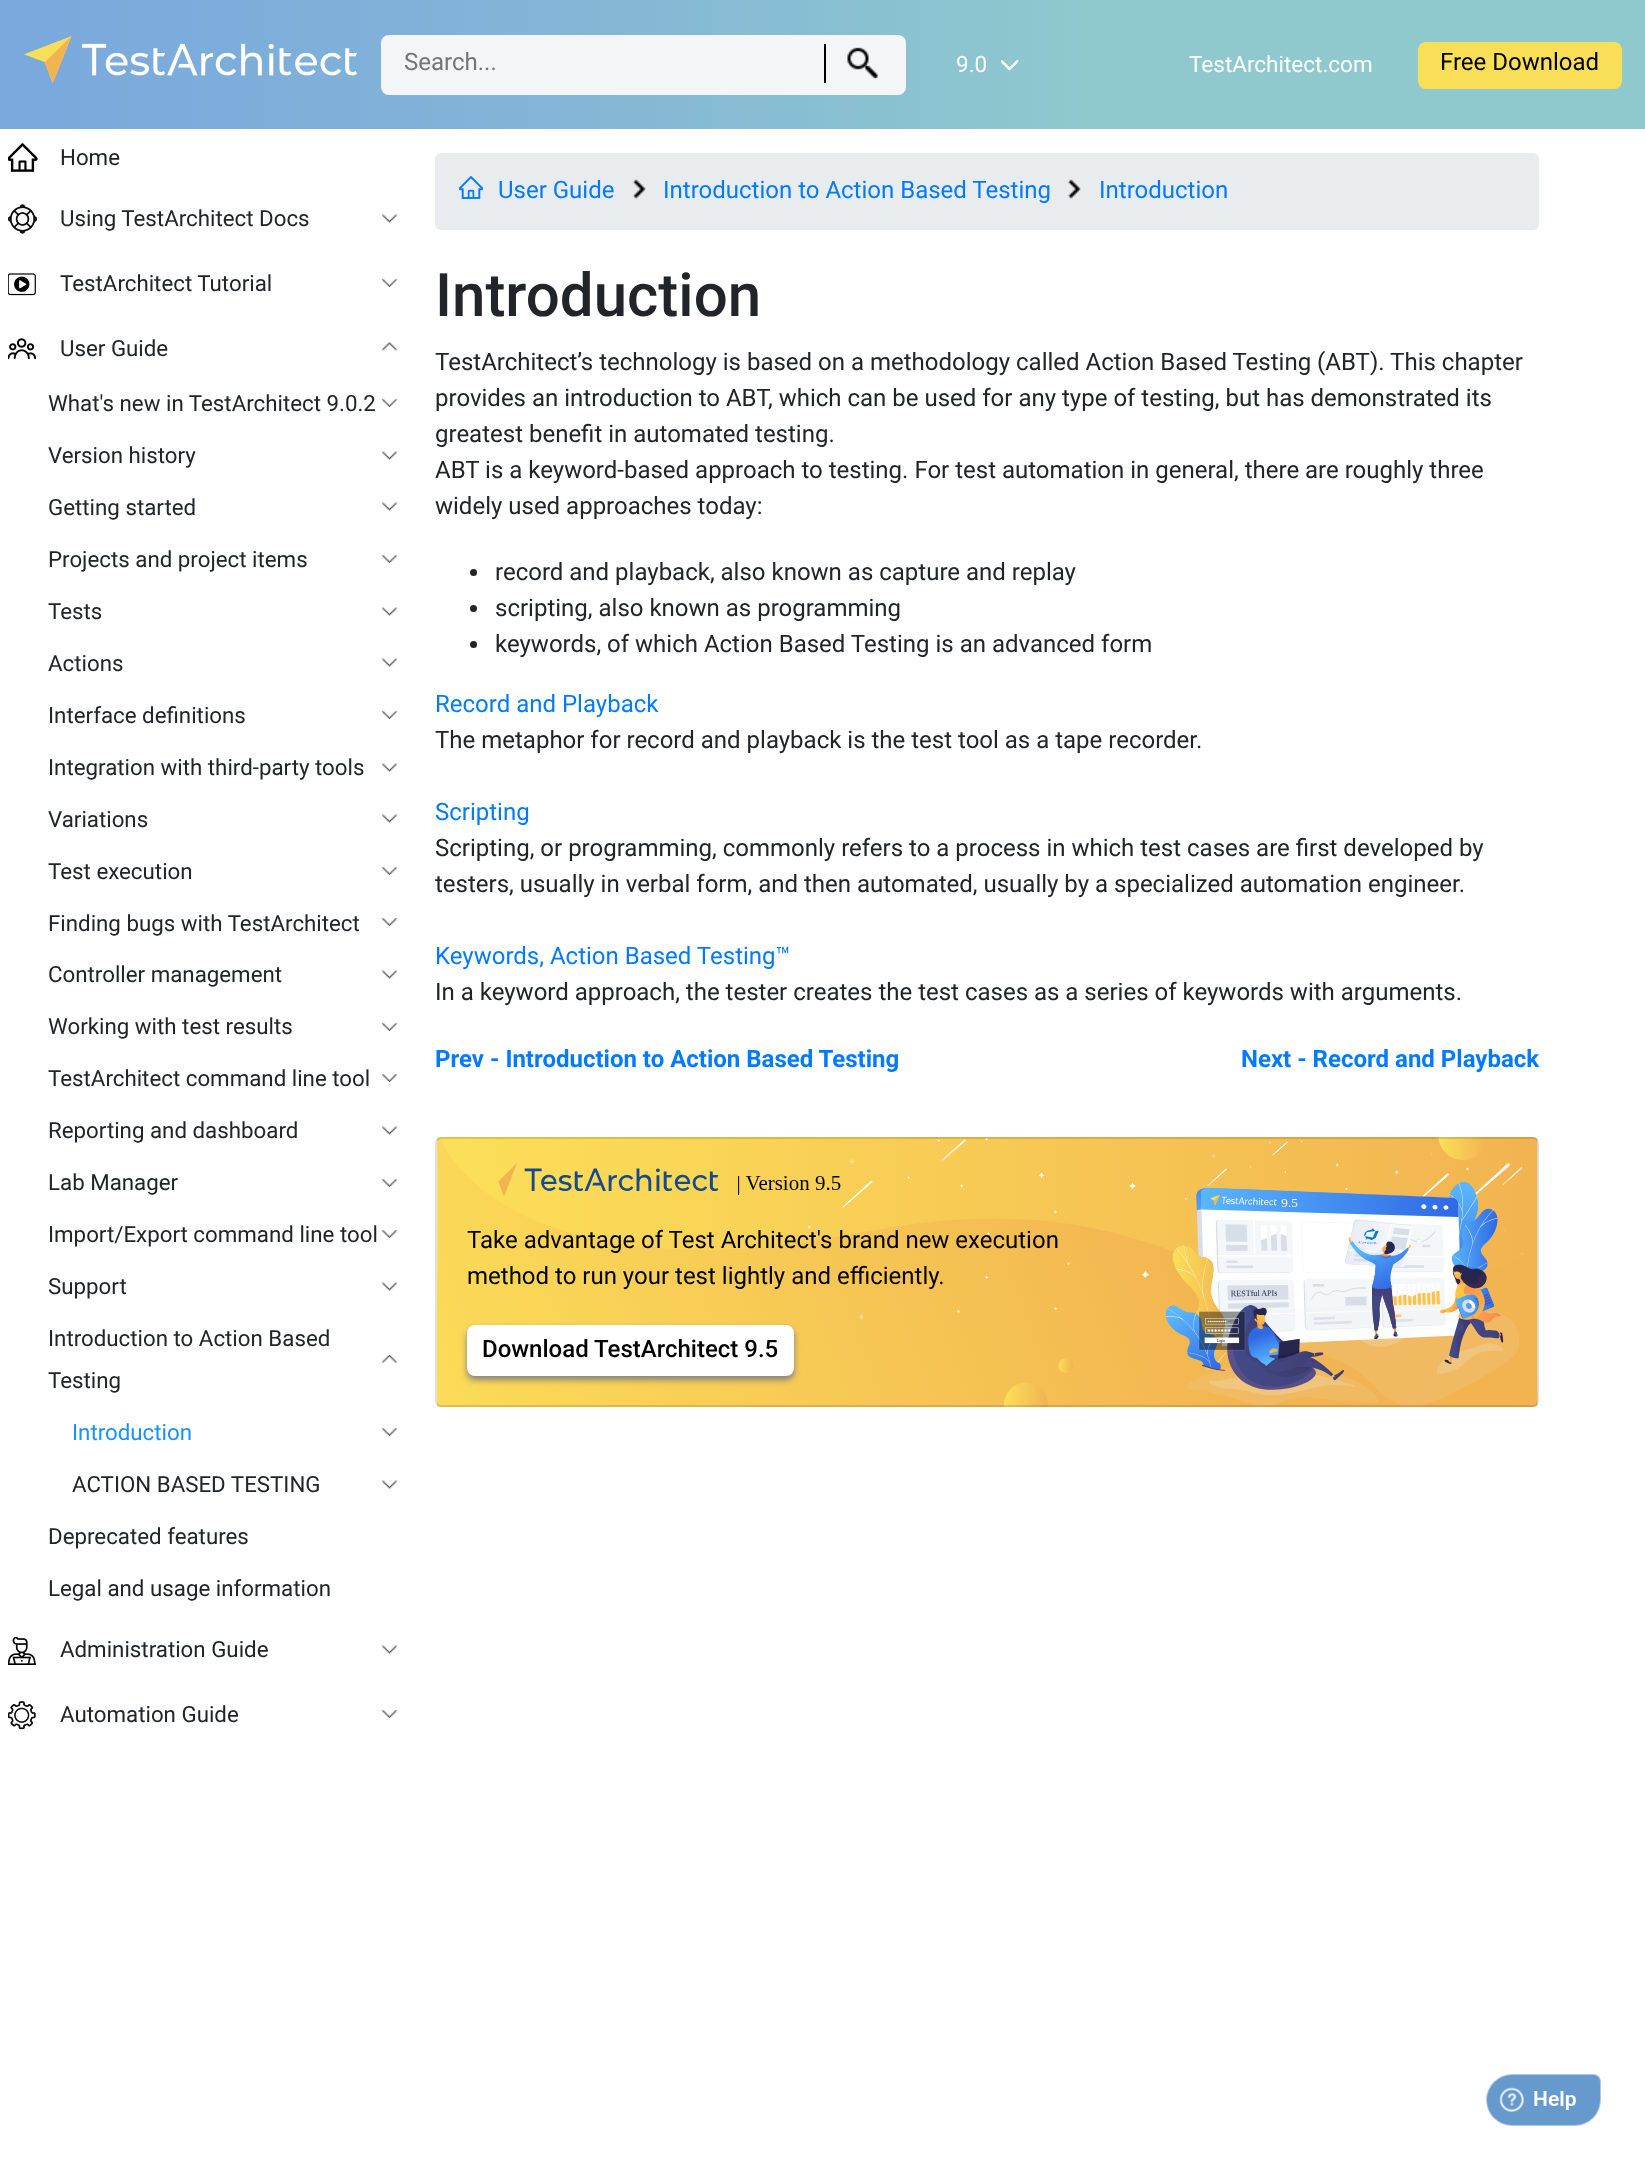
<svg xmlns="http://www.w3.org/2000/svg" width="1645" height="2179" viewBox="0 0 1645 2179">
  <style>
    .t1 { font: 24px Roboto; fill: #757575; }
    .t2 { font: 22.5px Roboto; fill: #fff; }
    .t3 { font: 24px Roboto; fill: #000; }
    .t4 { font: 22.3px Roboto; fill: #212529; }
    .t5 { font: 22.3px Roboto; fill: #1890ff; }
    .t6 { font: 24px Roboto; fill: #007bff; }
    .t7 { font: 500 60px Roboto; fill: #212529; }
    .t8 { font: 24px Roboto; fill: #212529; }
    .t9 { font: bold 24px Roboto; fill: #007bff; }
    .t10 { font: 500 24px Roboto; fill: #000; }
  </style>
  <defs>
    <linearGradient id="g1" gradientUnits="userSpaceOnUse" x1="0" y1="65" x2="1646" y2="64"><stop offset="0" stop-color="#79a8dd"/><stop offset="0.33" stop-color="#82b5d7"/><stop offset="0.67" stop-color="#8fc9cd"/><stop offset="1" stop-color="#8fc9cd"/></linearGradient>
  </defs>
  <rect width="100%" height="100%" fill="#fff"/>
  <rect x="0" y="0" width="1645" height="129" fill="url(#g1)"/>
  <image x="24" y="36" width="333" height="47" href="images/1.png"/>
  <rect x="381" y="35" width="525" height="60" rx="8" fill="#f4f5f7"/>
  <text x="404" y="70" class="t1">Search...</text>
  <rect x="824" y="44" width="2" height="39" fill="#000"/>
  <image x="847" y="47" width="31" height="32" href="images/2.png"/>
  <text x="956" y="72" class="t2">9.0</text>
  <image x="1001" y="60" width="18" height="11" href="images/3.png"/>
  <text x="1189" y="72" class="t2">TestArchitect.com</text>
  <rect x="1418" y="42" width="204" height="47" rx="8" fill="#f9df58"/>
  <text x="1440" y="70" class="t3">Free Download</text>
  <image x="8" y="143" width="30" height="29" href="images/4.png"/>
  <text x="60" y="165" class="t4">Home</text>
  <image x="8" y="204" width="30" height="30" href="images/5.png"/>
  <text x="60" y="226" class="t4">Using TestArchitect Docs</text>
  <image x="382" y="214" width="15" height="9" href="images/6.png"/>
  <image x="8" y="273" width="28" height="23" href="images/7.png"/>
  <text x="60" y="291" class="t4">TestArchitect Tutorial</text>
  <image x="382" y="279" width="15" height="8" href="images/8.png"/>
  <image x="8" y="338" width="28" height="22" href="images/9.png"/>
  <text x="60" y="356" class="t4">User Guide</text>
  <image x="382" y="342" width="15" height="9" href="images/10.png"/>
  <text x="48" y="411" class="t4">What's new in TestArchitect 9.0.2</text>
  <image x="382" y="399" width="15" height="8" href="images/8.png"/>
  <text x="48" y="463" class="t4">Version history</text>
  <image x="382" y="451" width="15" height="9" href="images/6.png"/>
  <text x="48" y="515" class="t4">Getting started</text>
  <image x="382" y="502" width="15" height="9" href="images/6.png"/>
  <text x="48" y="567" class="t4">Projects and project items</text>
  <image x="382" y="555" width="15" height="8" href="images/8.png"/>
  <text x="48" y="619" class="t4">Tests</text>
  <image x="382" y="607" width="15" height="9" href="images/6.png"/>
  <text x="48" y="671" class="t4">Actions</text>
  <image x="382" y="658" width="15" height="9" href="images/6.png"/>
  <text x="48" y="723" class="t4">Interface definitions</text>
  <image x="382" y="711" width="15" height="8" href="images/8.png"/>
  <text x="48" y="775" class="t4">Integration with third-party tools</text>
  <image x="382" y="763" width="15" height="9" href="images/6.png"/>
  <text x="48" y="827" class="t4">Variations</text>
  <image x="382" y="814" width="15" height="9" href="images/6.png"/>
  <text x="48" y="879" class="t4">Test execution</text>
  <image x="382" y="867" width="15" height="8" href="images/8.png"/>
  <text x="48" y="931" class="t4">Finding bugs with TestArchitect</text>
  <image x="382" y="918" width="15" height="8" href="images/8.png"/>
  <text x="48" y="982" class="t4">Controller management</text>
  <image x="382" y="970" width="15" height="9" href="images/6.png"/>
  <text x="48" y="1034" class="t4">Working with test results</text>
  <image x="382" y="1023" width="15" height="8" href="images/8.png"/>
  <text x="48" y="1086" class="t4">TestArchitect command line tool</text>
  <image x="382" y="1074" width="15" height="8" href="images/8.png"/>
  <text x="48" y="1138" class="t4">Reporting and dashboard</text>
  <image x="382" y="1126" width="15" height="9" href="images/6.png"/>
  <text x="48" y="1190" class="t4">Lab Manager</text>
  <image x="382" y="1179" width="15" height="8" href="images/8.png"/>
  <text x="48" y="1242" class="t4">Import/Export command line tool</text>
  <image x="382" y="1230" width="15" height="8" href="images/8.png"/>
  <text x="48" y="1294" class="t4">Support</text>
  <image x="382" y="1282" width="15" height="9" href="images/6.png"/>
  <text x="48" y="1346" class="t4">Introduction to Action Based</text>
  <image x="382" y="1354" width="15" height="9" href="images/11.png"/>
  <text x="48" y="1388" class="t4">Testing</text>
  <text x="72" y="1440" class="t5">Introduction</text>
  <image x="382" y="1428" width="15" height="8" href="images/8.png"/>
  <text x="72" y="1492" class="t4">ACTION BASED TESTING</text>
  <image x="382" y="1480" width="15" height="9" href="images/6.png"/>
  <text x="48" y="1544" class="t4">Deprecated features</text>
  <text x="48" y="1596" class="t4">Legal and usage information</text>
  <image x="8" y="1637" width="28" height="28" href="images/12.png"/>
  <text x="60" y="1657" class="t4">Administration Guide</text>
  <image x="382" y="1645" width="15" height="9" href="images/6.png"/>
  <image x="8" y="1701" width="28" height="29" href="images/13.png"/>
  <text x="60" y="1722" class="t4">Automation Guide</text>
  <image x="382" y="1710" width="15" height="8" href="images/8.png"/>
  <rect x="435" y="153" width="1104" height="77" rx="6" fill="#e9ecef"/>
  <image x="459" y="176" width="24" height="23" href="images/14.png"/>
  <text x="498" y="198" class="t6">User Guide</text>
  <image x="632" y="179" width="14" height="20" href="images/15.png"/>
  <text x="663" y="198" class="t6">Introduction to Action Based Testing</text>
  <image x="1067" y="179" width="14" height="20" href="images/16.png"/>
  <text x="1099" y="198" class="t6">Introduction</text>
  <text x="435" y="316" class="t7">Introduction</text>
  <text x="435" y="370" class="t8">TestArchitect’s technology is based on a methodology called Action Based Testing (ABT). This chapter</text>
  <text x="435" y="406" class="t8">provides an introduction to ABT, which can be used for any type of testing, but has demonstrated its</text>
  <text x="435" y="442" class="t8">greatest benefit in automated testing.</text>
  <text x="435" y="478" class="t8">ABT is a keyword-based approach to testing. For test automation in general, there are roughly three</text>
  <text x="435" y="514" class="t8">widely used approaches today:</text>
  <circle cx="473.5" cy="572.5" r="3.5" fill="#212529"/>
  <text x="495" y="580" class="t8">record and playback, also known as capture and replay</text>
  <circle cx="473.5" cy="608.5" r="3.5" fill="#212529"/>
  <text x="495" y="616" class="t8">scripting, also known as programming</text>
  <circle cx="473.5" cy="644.5" r="3.5" fill="#212529"/>
  <text x="495" y="652" class="t8">keywords, of which Action Based Testing is an advanced form</text>
  <text x="435" y="712" class="t6">Record and Playback</text>
  <text x="435" y="748" class="t8">The metaphor for record and playback is the test tool as a tape recorder.</text>
  <text x="435" y="820" class="t6">Scripting</text>
  <text x="435" y="856" class="t8">Scripting, or programming, commonly refers to a process in which test cases are first developed by</text>
  <text x="435" y="892" class="t8">testers, usually in verbal form, and then automated, usually by a specialized automation engineer.</text>
  <text x="435" y="964" class="t6">Keywords, Action Based Testing™</text>
  <text x="435" y="1000" class="t8">In a keyword approach, the tester creates the test cases as a series of keywords with arguments.</text>
  <text x="435" y="1067" class="t9">Prev - Introduction to Action Based Testing</text>
  <text x="1241" y="1067" class="t9">Next - Record and Playback</text>
  <image x="437" y="1137" width="1101" height="270" href="images/17.png"/>
  <rect x="436" y="1138" width="1102" height="268" rx="5" fill="none" stroke="#0000001f" stroke-width="2"/>
  <image x="498" y="1163" width="343" height="34" href="images/18.png"/>
  <text x="467" y="1248" class="t3">Take advantage of Test Architect's brand new execution</text>
  <text x="467" y="1284" class="t3">method to run your test lightly and efficiently.</text>
  <rect x="467" y="1329" width="327" height="51" rx="8" fill="#848280" filter="blur(3px)"/>
  <rect x="467" y="1325" width="327" height="51" rx="8" fill="#fff"/>
  <text x="482" y="1357" class="t10">Download TestArchitect 9.5</text>
  <image x="1166" y="1182" width="353" height="224" href="images/19.png"/>
  <image x="1486" y="2074" width="115" height="52" href="images/20.png"/>
</svg>
